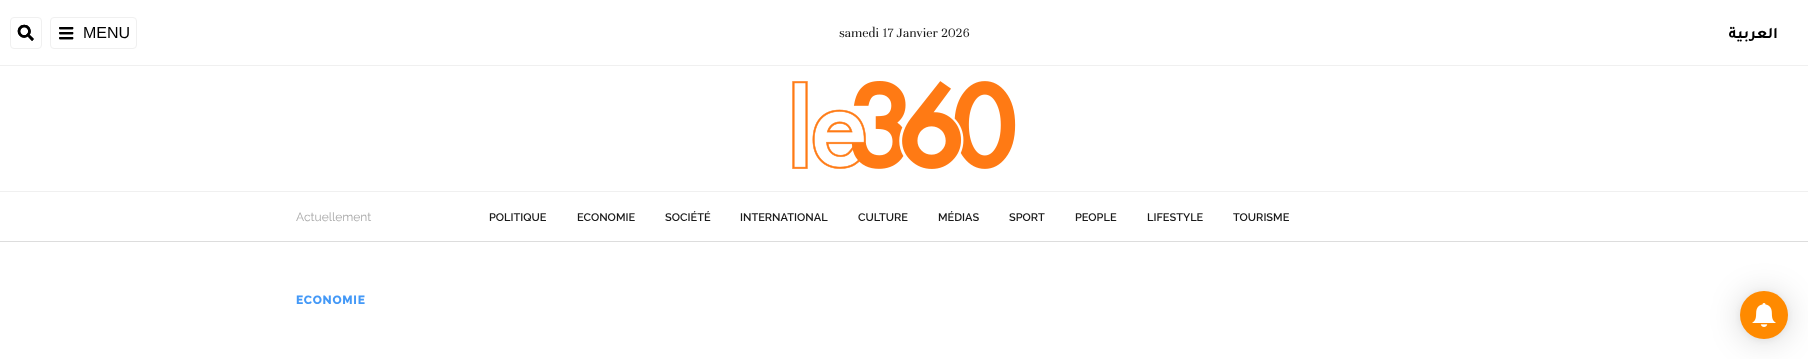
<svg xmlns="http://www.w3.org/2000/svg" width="1808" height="359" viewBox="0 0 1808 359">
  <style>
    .t1 { font: 16px Liberation Sans; fill: #000; }
    .t2 { font: 14px Unna; fill: #1a1a1a; }
    .t3 { font: bold 16px Tajawal; direction: rtl; fill: #000; }
    .t4 { font: 12px Raleway; fill: #a9a9a9; }
    .t5 { font: 600 11px Raleway; fill: #1a1a1a; }
    .t6 { font: 800 12px Raleway; letter-spacing: 0.75px; fill: #4499f7; }
  </style>
  <rect width="100%" height="100%" fill="#fff"/>
  <rect x="0" y="65" width="1808" height="1" fill="#f0f0f0"/>
  <rect x="10.5" y="17.5" width="31" height="31" rx="3.5" fill="none" stroke="#f0f0f0"/>
  <image x="17" y="24" width="17" height="17" href="images/1.png"/>
  <rect x="50.5" y="17.5" width="86" height="31" rx="3.5" fill="none" stroke="#f0f0f0"/>
  <image x="59" y="27" width="15" height="13" href="images/2.png"/>
  <text x="83" y="38" class="t1">MENU</text>
  <text x="839" y="37" class="t2">samedi 17 Janvier 2026</text>
  <text x="1778" y="38" class="t3">العربية</text>
  <rect x="0" y="191" width="1808" height="1" fill="#f0f0f0"/>
  <image x="792" y="81" width="224" height="88" href="images/3.png"/>
  <rect x="0" y="241" width="1808" height="1" fill="#ddd"/>
  <text x="296" y="221" class="t4">Actuellement</text>
  <text x="489" y="221" class="t5">POLITIQUE</text>
  <text x="577" y="221" class="t5">ECONOMIE</text>
  <text x="665" y="221" class="t5">SOCIÉTÉ</text>
  <text x="740" y="221" class="t5">INTERNATIONAL</text>
  <text x="858" y="221" class="t5">CULTURE</text>
  <text x="938" y="221" class="t5">MÉDIAS</text>
  <text x="1009" y="221" class="t5">SPORT</text>
  <text x="1075" y="221" class="t5">PEOPLE</text>
  <text x="1147" y="221" class="t5">LIFESTYLE</text>
  <text x="1233" y="221" class="t5">TOURISME</text>
  <text x="296" y="304" class="t6">ECONOMIE</text>
  <rect x="1740" y="293" width="48" height="48" rx="24" fill="#00000029" filter="blur(16px)"/>
  <rect x="1740" y="292" width="48" height="48" rx="24" fill="#0000000f" filter="blur(3px)"/>
  <circle cx="1764" cy="315" r="24" fill="#ff8a00"/>
  <image x="1752" y="303" width="24" height="24" href="images/4.png"/>
</svg>
